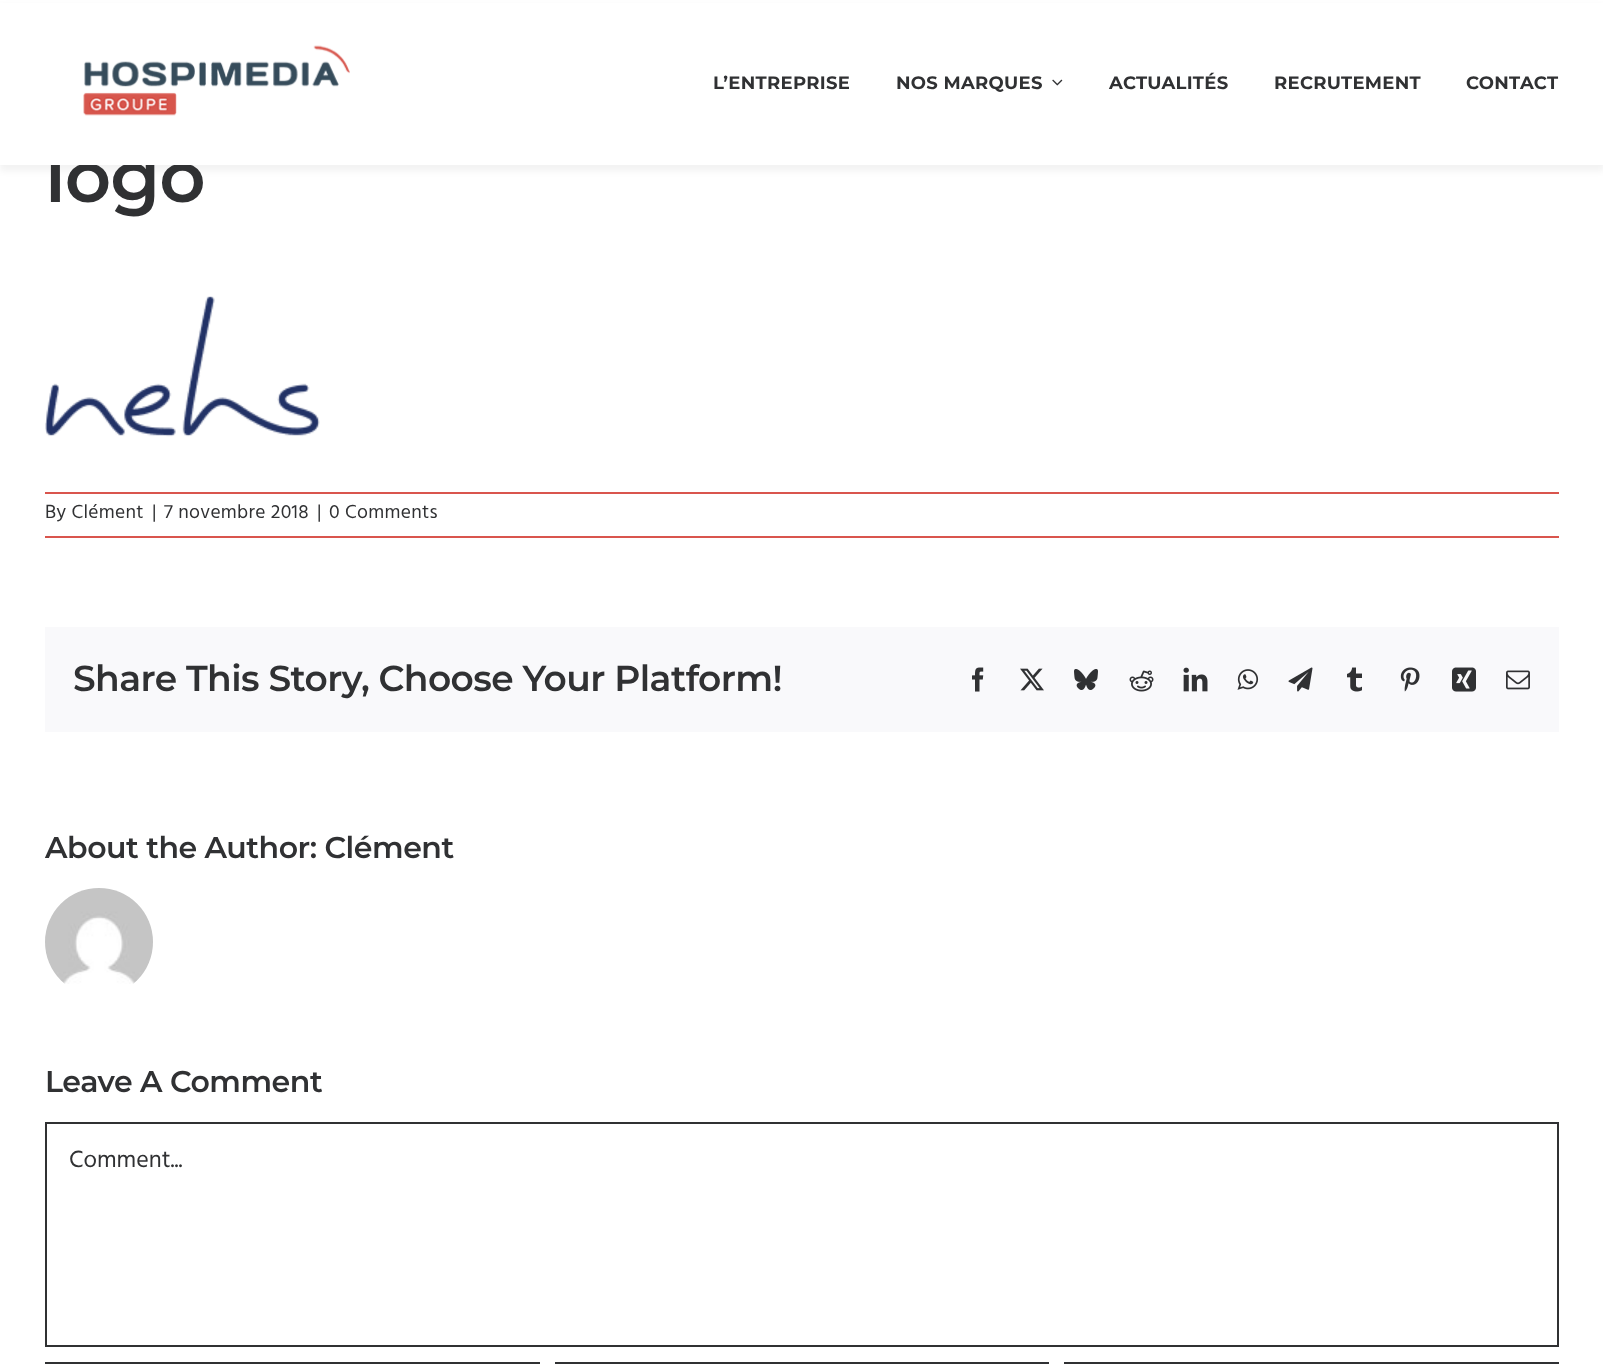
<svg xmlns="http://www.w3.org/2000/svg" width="1603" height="1364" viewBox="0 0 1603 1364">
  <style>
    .t1 { font: 600 72px Montserrat; letter-spacing: -1px; fill: #303133; }
    .t2 { font: bold 18px Montserrat; letter-spacing: 0.3px; fill: #303133; }
    .t3 { font: 19.5px Hind; letter-spacing: 0.3px; fill: #303133; }
    .t4 { font: 600 36px Montserrat; letter-spacing: -0.55px; fill: #303133; }
    .t5 { font: 600 30px Montserrat; letter-spacing: -0.45px; fill: #303133; }
    .t6 { font: 24px Hind; fill: #303133; }
  </style>
  <rect width="100%" height="100%" fill="#fff"/>
  <rect x="0" y="6" width="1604" height="165" fill="#0000000d" filter="blur(3px)"/>
  <text x="45" y="202" class="t1">logo</text>
  <rect x="0" y="3" width="1603" height="162" fill="#fff"/>
  <image x="83" y="45" width="267" height="71" href="images/1.png"/>
  <text x="713" y="89" class="t2">L’ENTREPRISE</text>
  <text x="896" y="89" class="t2">NOS MARQUES</text>
  <image x="1052" y="79" width="11" height="7" href="images/2.png"/>
  <text x="1109" y="89" class="t2">ACTUALITÉS</text>
  <text x="1274" y="89" class="t2">RECRUTEMENT</text>
  <text x="1466" y="89" class="t2">CONTACT</text>
  <image x="45" y="296" width="275" height="141" href="images/3.png"/>
  <rect x="45" y="492" width="1514" height="2" fill="#d9554d"/>
  <rect x="45" y="536" width="1514" height="2" fill="#d9554d"/>
  <text x="45" y="518" class="t3">By Clément</text>
  <text x="152" y="518" class="t3">|</text>
  <text x="164" y="518" class="t3">7 novembre 2018</text>
  <text x="317" y="518" class="t3">|</text>
  <text x="329" y="518" class="t3">0 Comments</text>
  <rect x="45" y="627" width="1514" height="105" fill="#f9f9fb"/>
  <text x="73" y="691" class="t4">Share This Story, Choose Your Platform!</text>
  <image x="972" y="667" width="12" height="25" href="images/4.png"/>
  <image x="1020" y="668" width="24" height="23" href="images/5.png"/>
  <image x="1074" y="669" width="24" height="21" href="images/6.png"/>
  <image x="1129" y="670" width="25" height="22" href="images/7.png"/>
  <image x="1183" y="667" width="25" height="25" href="images/8.png"/>
  <image x="1237" y="669" width="22" height="21" href="images/9.png"/>
  <image x="1288" y="667" width="25" height="25" href="images/10.png"/>
  <image x="1347" y="667" width="15" height="25" href="images/11.png"/>
  <image x="1400" y="667" width="20" height="25" href="images/12.png"/>
  <image x="1452" y="667" width="24" height="25" href="images/13.png"/>
  <image x="1506" y="670" width="24" height="20" href="images/14.png"/>
  <text x="45" y="858" class="t5">About the Author: Clément</text>
  <image x="45" y="888" width="108" height="96" href="images/15.png"/>
  <text x="45" y="1092" class="t5">Leave A Comment</text>
  <rect x="46" y="1123" width="1512" height="223" fill="none" stroke="#303133" stroke-width="2"/>
  <text x="69" y="1167" class="t6">Comment...</text>
  <rect x="46" y="1363" width="493" height="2" fill="none" stroke="#303133" stroke-width="2"/>
  <rect x="556" y="1363" width="492" height="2" fill="none" stroke="#303133" stroke-width="2"/>
  <rect x="1065" y="1363" width="493" height="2" fill="none" stroke="#303133" stroke-width="2"/>
</svg>
